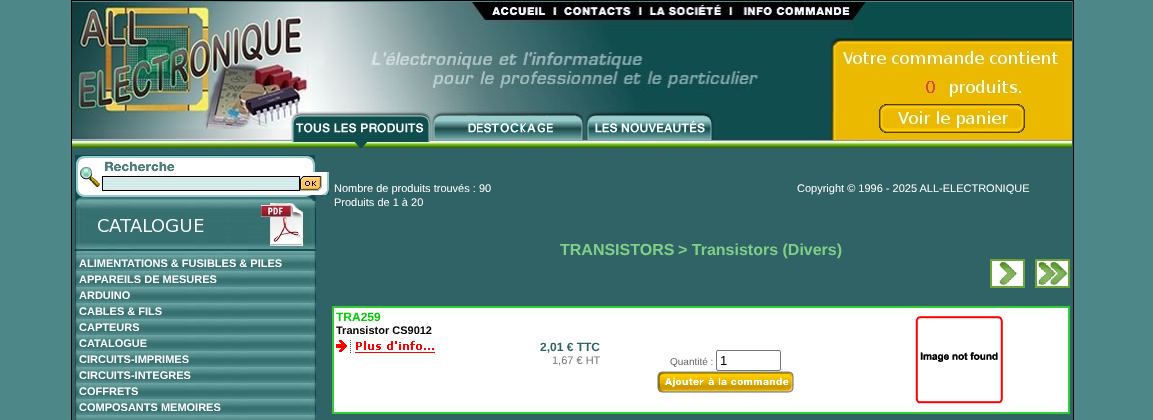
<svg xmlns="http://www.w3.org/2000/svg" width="1153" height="420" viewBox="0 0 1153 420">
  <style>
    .t1 { font: bold 11px Liberation Sans; fill: #fff; }
    .t2 { font: 11px Liberation Sans; fill: #fff; }
    .t3 { font: bold 16px Liberation Sans; fill: #81ce88; }
    .t4 { font: bold 12px Liberation Sans; fill: #0c0; }
    .t5 { font: bold 11px Liberation Sans; fill: #000; }
    .t6 { font: bold 12px Liberation Sans; fill: #306365; }
    .t7 { font: 11px Liberation Sans; fill: #777; }
    .t8 { font: 10px Liberation Sans; fill: #666; }
    .t9 { font: 13px Liberation Sans; fill: #000; }
  </style>
  <rect width="100%" height="100%" fill="#4d8788"/>
  <rect x="71" y="0" width="1003" height="420" fill="#000"/>
  <rect x="72" y="1" width="1001" height="419" fill="#306365"/>
  <rect x="72" y="1" width="1000" height="1" fill="#4d8788"/>
  <image x="72" y="2" width="780" height="146" href="images/1.png"/>
  <image x="852" y="2" width="220" height="17" href="images/2.png"/>
  <image x="852" y="19" width="220" height="62" href="images/3.png"/>
  <rect x="852" y="81" width="73" height="12" fill="#ebb900"/>
  <image x="925" y="81" width="11" height="12" href="images/4.png"/>
  <rect x="936" y="81" width="11" height="12" fill="#ebb900"/>
  <image x="947" y="81" width="63" height="12" href="images/5.png"/>
  <image x="1010" y="81" width="15" height="12" href="images/6.png"/>
  <rect x="1025" y="81" width="47" height="12" fill="#ebb900"/>
  <image x="852" y="93" width="220" height="11" href="images/7.png"/>
  <rect x="852" y="104" width="27" height="29" fill="#ebb900"/>
  <image x="879" y="104" width="146" height="29" href="images/8.png"/>
  <rect x="1025" y="104" width="47" height="29" fill="#ebb900"/>
  <image x="852" y="133" width="220" height="15" href="images/9.png"/>
  <image x="75" y="155" width="27" height="42" href="images/10.png"/>
  <image x="102" y="155" width="213" height="17" href="images/11.png"/>
  <rect x="102" y="172" width="220" height="23" fill="#fff"/>
  <rect x="102.5" y="176.5" width="197" height="14" fill="#d5ebeb" stroke="#000"/>
  <image x="322" y="172" width="7" height="23" href="images/12.png"/>
  <image x="300" y="176" width="22" height="15" href="images/13.png"/>
  <image x="102" y="195" width="213" height="2" href="images/14.png"/>
  <image x="75" y="197" width="241" height="4" href="images/15.png"/>
  <image x="75" y="201" width="241" height="50" href="images/16.png"/>
  <image x="75" y="251" width="241" height="4" href="images/17.png"/>
  <image x="75" y="255" width="241" height="16" href="images/18.png"/>
  <text x="79" y="267" class="t1">ALIMENTATIONS &amp; FUSIBLES &amp; PILES</text>
  <image x="75" y="271" width="241" height="16" href="images/18.png"/>
  <text x="79" y="283" class="t1">APPAREILS DE MESURES</text>
  <image x="75" y="287" width="241" height="16" href="images/18.png"/>
  <text x="79" y="299" class="t1">ARDUINO</text>
  <image x="75" y="303" width="241" height="16" href="images/18.png"/>
  <text x="79" y="315" class="t1">CABLES &amp; FILS</text>
  <image x="75" y="319" width="241" height="16" href="images/18.png"/>
  <text x="79" y="331" class="t1">CAPTEURS</text>
  <image x="75" y="335" width="241" height="16" href="images/18.png"/>
  <text x="79" y="347" class="t1">CATALOGUE</text>
  <image x="75" y="351" width="241" height="16" href="images/18.png"/>
  <text x="79" y="363" class="t1">CIRCUITS-IMPRIMES</text>
  <image x="75" y="367" width="241" height="16" href="images/18.png"/>
  <text x="79" y="379" class="t1">CIRCUITS-INTEGRES</text>
  <image x="75" y="383" width="241" height="16" href="images/18.png"/>
  <text x="79" y="395" class="t1">COFFRETS</text>
  <image x="75" y="399" width="241" height="16" href="images/18.png"/>
  <text x="79" y="411" class="t1">COMPOSANTS MEMOIRES</text>
  <image x="75" y="415" width="241" height="5" href="images/19.png"/>
  <text x="334" y="192" class="t2">Nombre de produits trouvés : 90</text>
  <text x="797" y="192" class="t2">Copyright © 1996 - 2025 ALL-ELECTRONIQUE</text>
  <text x="334" y="206" class="t2">Produits de 1 à 20</text>
  <text x="560" y="255" class="t3">TRANSISTORS</text>
  <text x="678" y="255" class="t3">&gt; Transistors (Divers)</text>
  <image x="990" y="259" width="35" height="29" href="images/20.png"/>
  <image x="1035" y="259" width="35" height="29" href="images/21.png"/>
  <rect x="333" y="307" width="736" height="106" fill="#fff" stroke="#3c3" stroke-width="2"/>
  <text x="336" y="321" class="t4">TRA259</text>
  <text x="336" y="334" class="t5">Transistor CS9012</text>
  <image x="915" y="316" width="88" height="88" href="images/22.png"/>
  <image x="336" y="340" width="99" height="13" href="images/23.png"/>
  <text x="540" y="351" class="t6">2,01 € TTC</text>
  <text x="552" y="364" class="t7">1,67 € HT</text>
  <text x="670" y="365" class="t8">Quantité :</text>
  <rect x="716.5" y="350.5" width="64" height="20" rx="1.5" fill="none" stroke="#767676"/>
  <text x="720" y="365" class="t9">1</text>
  <image x="657" y="371" width="137" height="22" href="images/24.png"/>
</svg>
